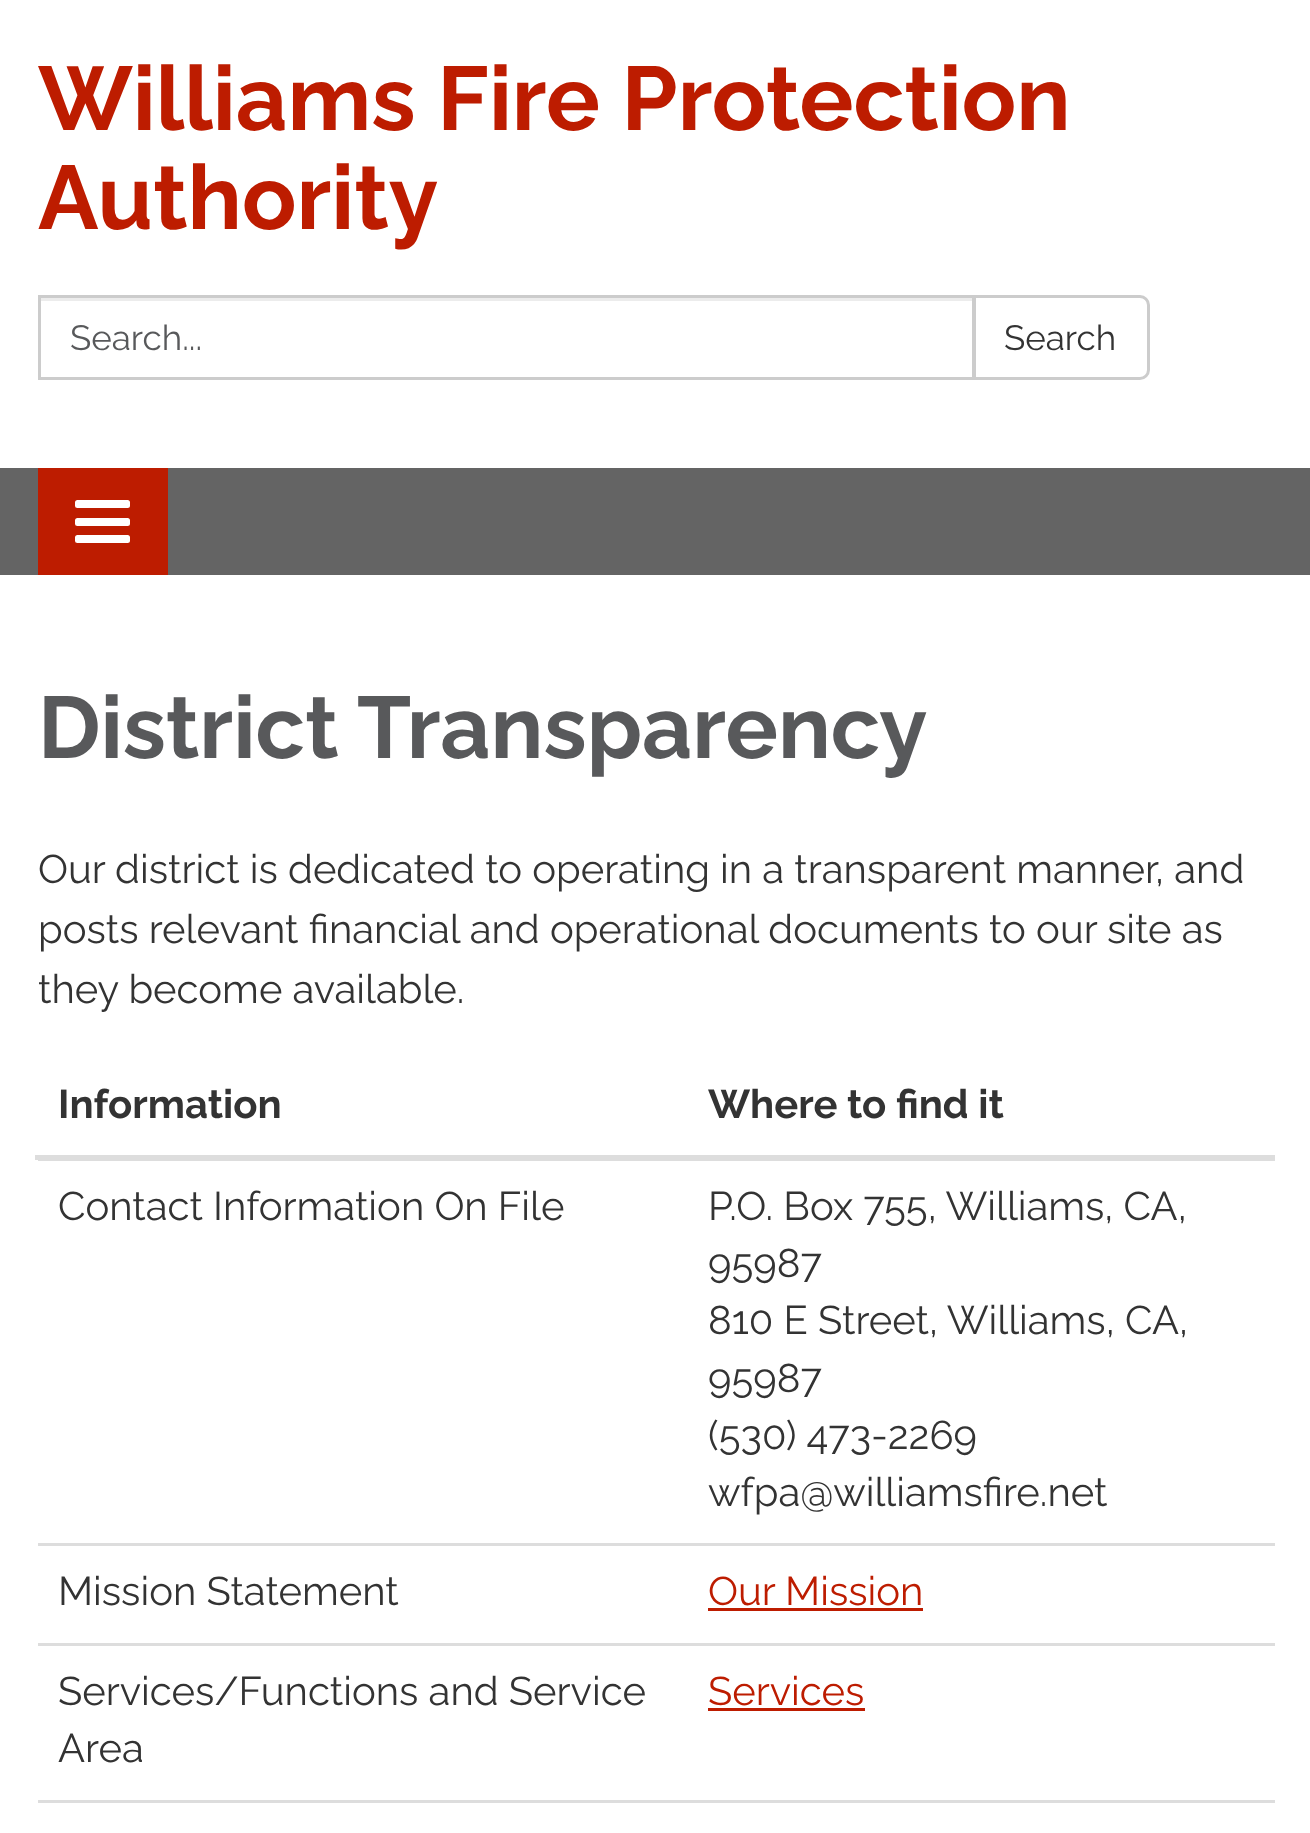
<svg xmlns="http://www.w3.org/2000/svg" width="1310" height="1833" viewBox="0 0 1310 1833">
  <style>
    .t1 { font: bold 90px Raleway; fill: #bd1c00; }
    .t2 { font: 35px Raleway; fill: #58595b; }
    .t3 { font: 35px Raleway; fill: #333; }
    .t4 { font: bold 87.5px Raleway; fill: #58595b; }
    .t5 { font: 40px Raleway; fill: #333; }
    .t6 { font: bold 40px Raleway; fill: #333; }
    .t7 { font: 40px Raleway; fill: #bd1c00; }
  </style>
  <rect width="100%" height="100%" fill="#646464"/>
  <rect x="0" y="0" width="1310" height="468" fill="#fff"/>
  <text x="38" y="130" class="t1">Williams Fire Protection</text>
  <text x="38" y="229" class="t1">Authority</text>
  <rect x="40" y="298" width="933" height="3" fill="#ececec"/>
  <rect x="39.5" y="296.5" width="934" height="82" fill="none" stroke="#ccc" stroke-width="3"/>
  <text x="70" y="350" class="t2">Search...</text>
  <path d="M974.5 296.5H1140C1144.5 296.5 1148.5 300.5 1148.5 305V370C1148.5 374.5 1144.5 378.5 1140 378.5H974.5Z" fill="#fff" stroke="#ccc" stroke-width="3"/>
  <text x="1004" y="350" class="t3">Search</text>
  <rect x="38" y="468" width="130" height="107" fill="#bd1c00"/>
  <rect x="75" y="500" width="55" height="8" rx="2.5" fill="#fff"/>
  <rect x="75" y="518" width="55" height="8" rx="2.5" fill="#fff"/>
  <rect x="75" y="535" width="55" height="8" rx="2.5" fill="#fff"/>
  <rect x="0" y="575" width="1310" height="1258" fill="#fff"/>
  <text x="38" y="758" class="t4">District Transparency</text>
  <text x="38" y="883" class="t5">Our district is dedicated to operating in a transparent manner, and</text>
  <text x="38" y="943" class="t5">posts relevant financial and operational documents to our site as</text>
  <text x="38" y="1003" class="t5">they become available.</text>
  <text x="58" y="1118" class="t6">Information</text>
  <rect x="35" y="1155" width="1240" height="5" fill="#ddd"/>
  <text x="708" y="1118" class="t6">Where to find it</text>
  <text x="58" y="1220" class="t5">Contact Information On File</text>
  <rect x="38" y="1160" width="1237" height="1" fill="#ddd"/>
  <text x="708" y="1220" class="t5">P.O. Box 755, Williams, CA,</text>
  <text x="708" y="1277" class="t5">95987</text>
  <text x="708" y="1334" class="t5">810 E Street, Williams, CA,</text>
  <text x="708" y="1392" class="t5">95987</text>
  <text x="708" y="1449" class="t5">(530) 473-2269</text>
  <text x="708" y="1506" class="t5">wfpa@williamsfire.net</text>
  <text x="58" y="1605" class="t5">Mission Statement</text>
  <rect x="38" y="1543" width="1237" height="3" fill="#ddd"/>
  <text x="708" y="1605" class="t7">Our Mission</text>
  <rect x="708" y="1608" width="215" height="3" fill="#bd1c00"/>
  <text x="58" y="1705" class="t5">Services/Functions and Service</text>
  <text x="58" y="1762" class="t5">Area</text>
  <rect x="38" y="1643" width="1237" height="3" fill="#ddd"/>
  <text x="708" y="1705" class="t7">Services</text>
  <rect x="708" y="1708" width="157" height="3" fill="#bd1c00"/>
  <rect x="38" y="1800" width="1237" height="3" fill="#ddd"/>
</svg>
